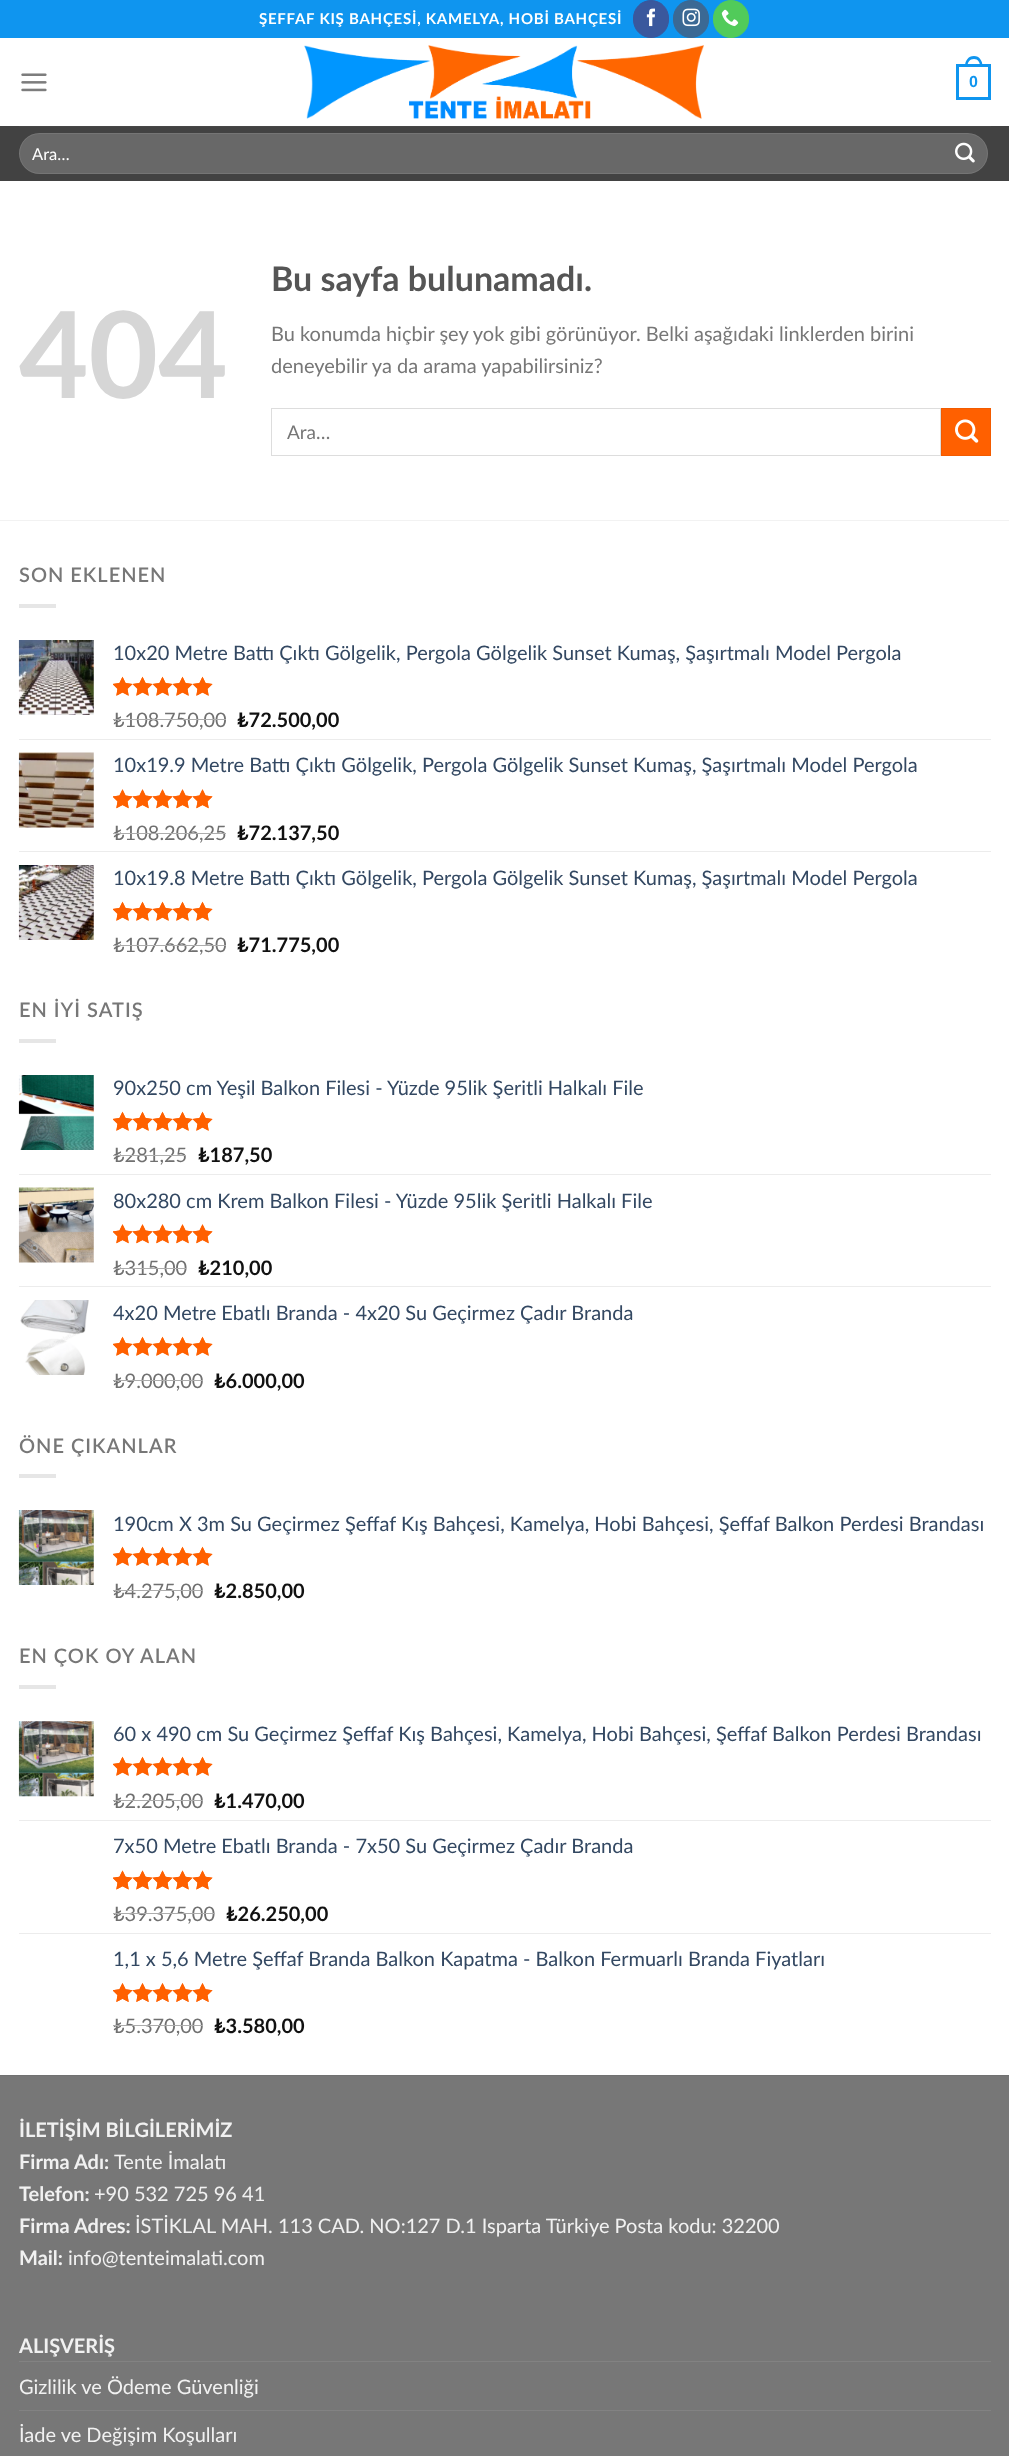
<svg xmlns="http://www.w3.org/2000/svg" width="1009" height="2456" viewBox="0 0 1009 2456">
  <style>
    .t1 { font: bold 15px Lato; letter-spacing: 0.75px; fill: #fff; }
    .t2 { font: bold 16px Liberation Sans; fill: #0f95ef; }
    .t3 { font: 16.5px Lato; fill: #fff; }
    .t4 { font: bold 120px Lato; fill: #d6d6d6; }
    .t5 { font: bold 34px Lato; fill: #555; }
    .t6 { font: 20px Lato; fill: #777; }
    .t7 { font: 19px Lato; fill: #777; }
    .t8 { font: 600 20px Lato; letter-spacing: 1px; fill: #777; }
    .t9 { font: 20px Lato; fill: #334862; }
    .t10 { font: 20px Lato; fill: #707070; }
    .t11 { font: bold 20px Lato; fill: #111; }
    .t12 { font: bold 20px Lato; fill: #f1f1f1; }
    .t13 { font: 20px Lato; fill: #f1f1f1; }
  </style>
  <rect width="100%" height="100%" fill="#fff"/>
  <rect x="0" y="0" width="1009" height="38" fill="#0f95ef"/>
  <text x="259" y="24" class="t1">ŞEFFAF KIŞ BAHÇESİ, KAMELYA, HOBİ BAHÇESİ</text>
  <rect x="633.5" y="0.5" width="35" height="37" rx="17.5" fill="#3a589d" stroke="#3a589d"/>
  <image x="646" y="8" width="9" height="19" href="images/1.png"/>
  <rect x="673.5" y="0.5" width="35" height="37" rx="17.5" fill="#3b6994" stroke="#3b6994"/>
  <image x="682" y="8" width="18" height="19" href="images/2.png"/>
  <rect x="713.5" y="0.5" width="35" height="37" rx="17.5" fill="#51cb5a" stroke="#51cb5a"/>
  <image x="721" y="9" width="18" height="18" href="images/3.png"/>
  <image x="21" y="73" width="26" height="19" href="images/4.png"/>
  <image x="304" y="45" width="400" height="74" href="images/5.png"/>
  <rect x="957.5" y="65.5" width="32" height="33" fill="none" stroke="#0f95ef" stroke-width="3"/>
  <path d="M974 56C979.5 56 982.5 61 982.5 66H965C965 61 968 56 974 56ZM974 59C978 59 980 62.5 980 66H967.5C967.5 62.5 969.5 59 974 59Z" fill="#0f95ef" fill-rule="evenodd"/>
  <text x="969" y="87" class="t2">0</text>
  <rect x="0" y="126" width="1009" height="55" fill="#424242"/>
  <rect x="19" y="126" width="972" height="1" fill="#474747"/>
  <rect x="19" y="133" width="969" height="41" rx="20.5" fill="#686868"/>
  <rect x="19.5" y="133.5" width="968" height="40" rx="20" fill="none" stroke="#ffffff17"/>
  <text x="32" y="160" class="t3">Ara…</text>
  <image x="955" y="142" width="20" height="21" href="images/6.png"/>
  <text x="19" y="398" class="t4">404</text>
  <text x="271" y="291" class="t5">Bu sayfa bulunamadı.</text>
  <text x="271" y="341" class="t6">Bu konumda hiçbir şey yok gibi görünüyor. Belki aşağıdaki linklerden birini</text>
  <text x="271" y="373" class="t6">deneyebilir ya da arama yapabilirsiniz?</text>
  <rect x="271.5" y="408.5" width="669" height="47" fill="none" stroke="#ddd"/>
  <text x="287" y="439" class="t7">Ara…</text>
  <rect x="941.5" y="408.5" width="49" height="47" fill="#ff6000" stroke="#f25b00"/>
  <image x="955" y="419" width="24" height="24" href="images/7.png"/>
  <rect x="0" y="520" width="1009" height="1" fill="#f2f2f2"/>
  <text x="19" y="582" class="t8">SON EKLENEN</text>
  <rect x="19" y="604" width="37" height="4" fill="#e6e6e6"/>
  <image x="18" y="640" width="76" height="75" href="images/8.png"/>
  <text x="113" y="660" class="t9">10x20 Metre Battı Çıktı Gölgelik, Pergola Gölgelik Sunset Kumaş, Şaşırtmalı Model Pergola</text>
  <image x="113" y="676" width="100" height="20" href="images/9.png"/>
  <image x="113" y="676" width="100" height="20" href="images/10.png"/>
  <text x="113" y="727" class="t10">₺108.750,00</text>
  <rect x="113" y="719" width="113" height="1" fill="#adadad"/>
  <text x="237" y="727" class="t11">₺72.500,00</text>
  <rect x="19" y="739" width="972" height="1" fill="#ececec"/>
  <image x="18" y="752" width="76" height="76" href="images/11.png"/>
  <text x="113" y="772" class="t9">10x19.9 Metre Battı Çıktı Gölgelik, Pergola Gölgelik Sunset Kumaş, Şaşırtmalı Model Pergola</text>
  <image x="113" y="789" width="100" height="20" href="images/12.png"/>
  <image x="113" y="789" width="100" height="20" href="images/13.png"/>
  <text x="113" y="840" class="t10">₺108.206,25</text>
  <rect x="113" y="833" width="113" height="1" fill="#adadad"/>
  <text x="237" y="840" class="t11">₺72.137,50</text>
  <rect x="19" y="851" width="972" height="1" fill="#ececec"/>
  <image x="18" y="865" width="76" height="75" href="images/14.png"/>
  <text x="113" y="885" class="t9">10x19.8 Metre Battı Çıktı Gölgelik, Pergola Gölgelik Sunset Kumaş, Şaşırtmalı Model Pergola</text>
  <image x="113" y="901" width="100" height="20" href="images/9.png"/>
  <image x="113" y="901" width="100" height="20" href="images/10.png"/>
  <text x="113" y="952" class="t10">₺107.662,50</text>
  <rect x="113" y="945" width="113" height="1" fill="#adadad"/>
  <text x="237" y="952" class="t11">₺71.775,00</text>
  <text x="19" y="1017" class="t8">EN İYİ SATIŞ</text>
  <rect x="19" y="1039" width="37" height="4" fill="#e6e6e6"/>
  <image x="18" y="1075" width="76" height="75" href="images/15.png"/>
  <text x="113" y="1095" class="t9">90x250 cm Yeşil Balkon Filesi - Yüzde 95lik Şeritli Halkalı File</text>
  <image x="113" y="1111" width="100" height="20" href="images/9.png"/>
  <image x="113" y="1111" width="100" height="20" href="images/10.png"/>
  <text x="113" y="1162" class="t10">₺281,25</text>
  <rect x="113" y="1155" width="73" height="1" fill="#adadad"/>
  <text x="198" y="1162" class="t11">₺187,50</text>
  <rect x="19" y="1174" width="972" height="1" fill="#ececec"/>
  <image x="18" y="1187" width="76" height="76" href="images/16.png"/>
  <text x="113" y="1208" class="t9">80x280 cm Krem Balkon Filesi - Yüzde 95lik Şeritli Halkalı File</text>
  <image x="113" y="1224" width="100" height="20" href="images/12.png"/>
  <image x="113" y="1224" width="100" height="20" href="images/13.png"/>
  <text x="113" y="1275" class="t10">₺315,00</text>
  <rect x="113" y="1268" width="73" height="1" fill="#adadad"/>
  <text x="198" y="1275" class="t11">₺210,00</text>
  <rect x="19" y="1286" width="972" height="1" fill="#ececec"/>
  <image x="20" y="1300" width="69" height="75" href="images/17.png"/>
  <text x="113" y="1320" class="t9">4x20 Metre Ebatlı Branda - 4x20 Su Geçirmez Çadır Branda</text>
  <image x="113" y="1336" width="100" height="20" href="images/9.png"/>
  <image x="113" y="1336" width="100" height="20" href="images/10.png"/>
  <text x="113" y="1388" class="t10">₺9.000,00</text>
  <rect x="113" y="1380" width="90" height="1" fill="#adadad"/>
  <text x="214" y="1388" class="t11">₺6.000,00</text>
  <text x="19" y="1453" class="t8">ÖNE ÇIKANLAR</text>
  <rect x="19" y="1474" width="37" height="4" fill="#e6e6e6"/>
  <image x="18" y="1510" width="76" height="75" href="images/18.png"/>
  <text x="113" y="1531" class="t9">190cm X 3m Su Geçirmez Şeffaf Kış Bahçesi, Kamelya, Hobi Bahçesi, Şeffaf Balkon Perdesi Brandası</text>
  <image x="113" y="1546" width="100" height="20" href="images/9.png"/>
  <image x="113" y="1546" width="100" height="20" href="images/10.png"/>
  <text x="113" y="1598" class="t10">₺4.275,00</text>
  <rect x="113" y="1590" width="90" height="1" fill="#adadad"/>
  <text x="214" y="1598" class="t11">₺2.850,00</text>
  <text x="19" y="1663" class="t8">EN ÇOK OY ALAN</text>
  <rect x="19" y="1685" width="37" height="4" fill="#e6e6e6"/>
  <image x="18" y="1721" width="76" height="76" href="images/19.png"/>
  <text x="113" y="1741" class="t9">60 x 490 cm Su Geçirmez Şeffaf Kış Bahçesi, Kamelya, Hobi Bahçesi, Şeffaf Balkon Perdesi Brandası</text>
  <image x="113" y="1756" width="100" height="20" href="images/9.png"/>
  <image x="113" y="1756" width="100" height="20" href="images/10.png"/>
  <text x="113" y="1808" class="t10">₺2.205,00</text>
  <rect x="113" y="1800" width="90" height="1" fill="#adadad"/>
  <text x="214" y="1808" class="t11">₺1.470,00</text>
  <rect x="19" y="1820" width="972" height="1" fill="#ececec"/>
  <text x="113" y="1853" class="t9">7x50 Metre Ebatlı Branda - 7x50 Su Geçirmez Çadır Branda</text>
  <image x="113" y="1870" width="100" height="20" href="images/20.png"/>
  <image x="113" y="1870" width="100" height="20" href="images/21.png"/>
  <text x="113" y="1921" class="t10">₺39.375,00</text>
  <rect x="113" y="1913" width="102" height="1" fill="#adadad"/>
  <text x="226" y="1921" class="t11">₺26.250,00</text>
  <rect x="19" y="1933" width="972" height="1" fill="#ececec"/>
  <text x="113" y="1966" class="t9">1,1 x 5,6 Metre Şeffaf Branda Balkon Kapatma - Balkon Fermuarlı Branda Fiyatları</text>
  <image x="113" y="1983" width="100" height="19" href="images/22.png"/>
  <image x="113" y="1983" width="100" height="19" href="images/23.png"/>
  <text x="113" y="2033" class="t10">₺5.370,00</text>
  <rect x="113" y="2025" width="90" height="1" fill="#adadad"/>
  <text x="214" y="2033" class="t11">₺3.580,00</text>
  <rect x="0" y="2076" width="1009" height="380" fill="#777"/>
  <rect x="0" y="2075" width="1009" height="1" fill="#717171"/>
  <text x="19" y="2137" class="t12">İLETİŞİM BİLGİLERİMİZ</text>
  <text x="19" y="2169" class="t12">Firma Adı:</text>
  <text x="114" y="2169" class="t13">Tente İmalatı</text>
  <text x="19" y="2201" class="t12">Telefon:</text>
  <text x="94" y="2201" class="t13">+90 532 725 96 41</text>
  <text x="19" y="2233" class="t12">Firma Adres:</text>
  <text x="135" y="2233" class="t13">İSTİKLAL MAH. 113 CAD. NO:127 D.1 Isparta Türkiye Posta kodu: 32200</text>
  <text x="19" y="2265" class="t12">Mail:</text>
  <text x="68" y="2265" class="t13">info@tenteimalati.com</text>
  <text x="19" y="2353" class="t12">ALIŞVERİŞ</text>
  <rect x="19" y="2361" width="972" height="1" fill="#828282"/>
  <text x="19" y="2394" class="t13">Gizlilik ve Ödeme Güvenliği</text>
  <rect x="19" y="2410" width="972" height="1" fill="#828282"/>
  <text x="19" y="2442" class="t13">İade ve Değişim Koşulları</text>
</svg>
